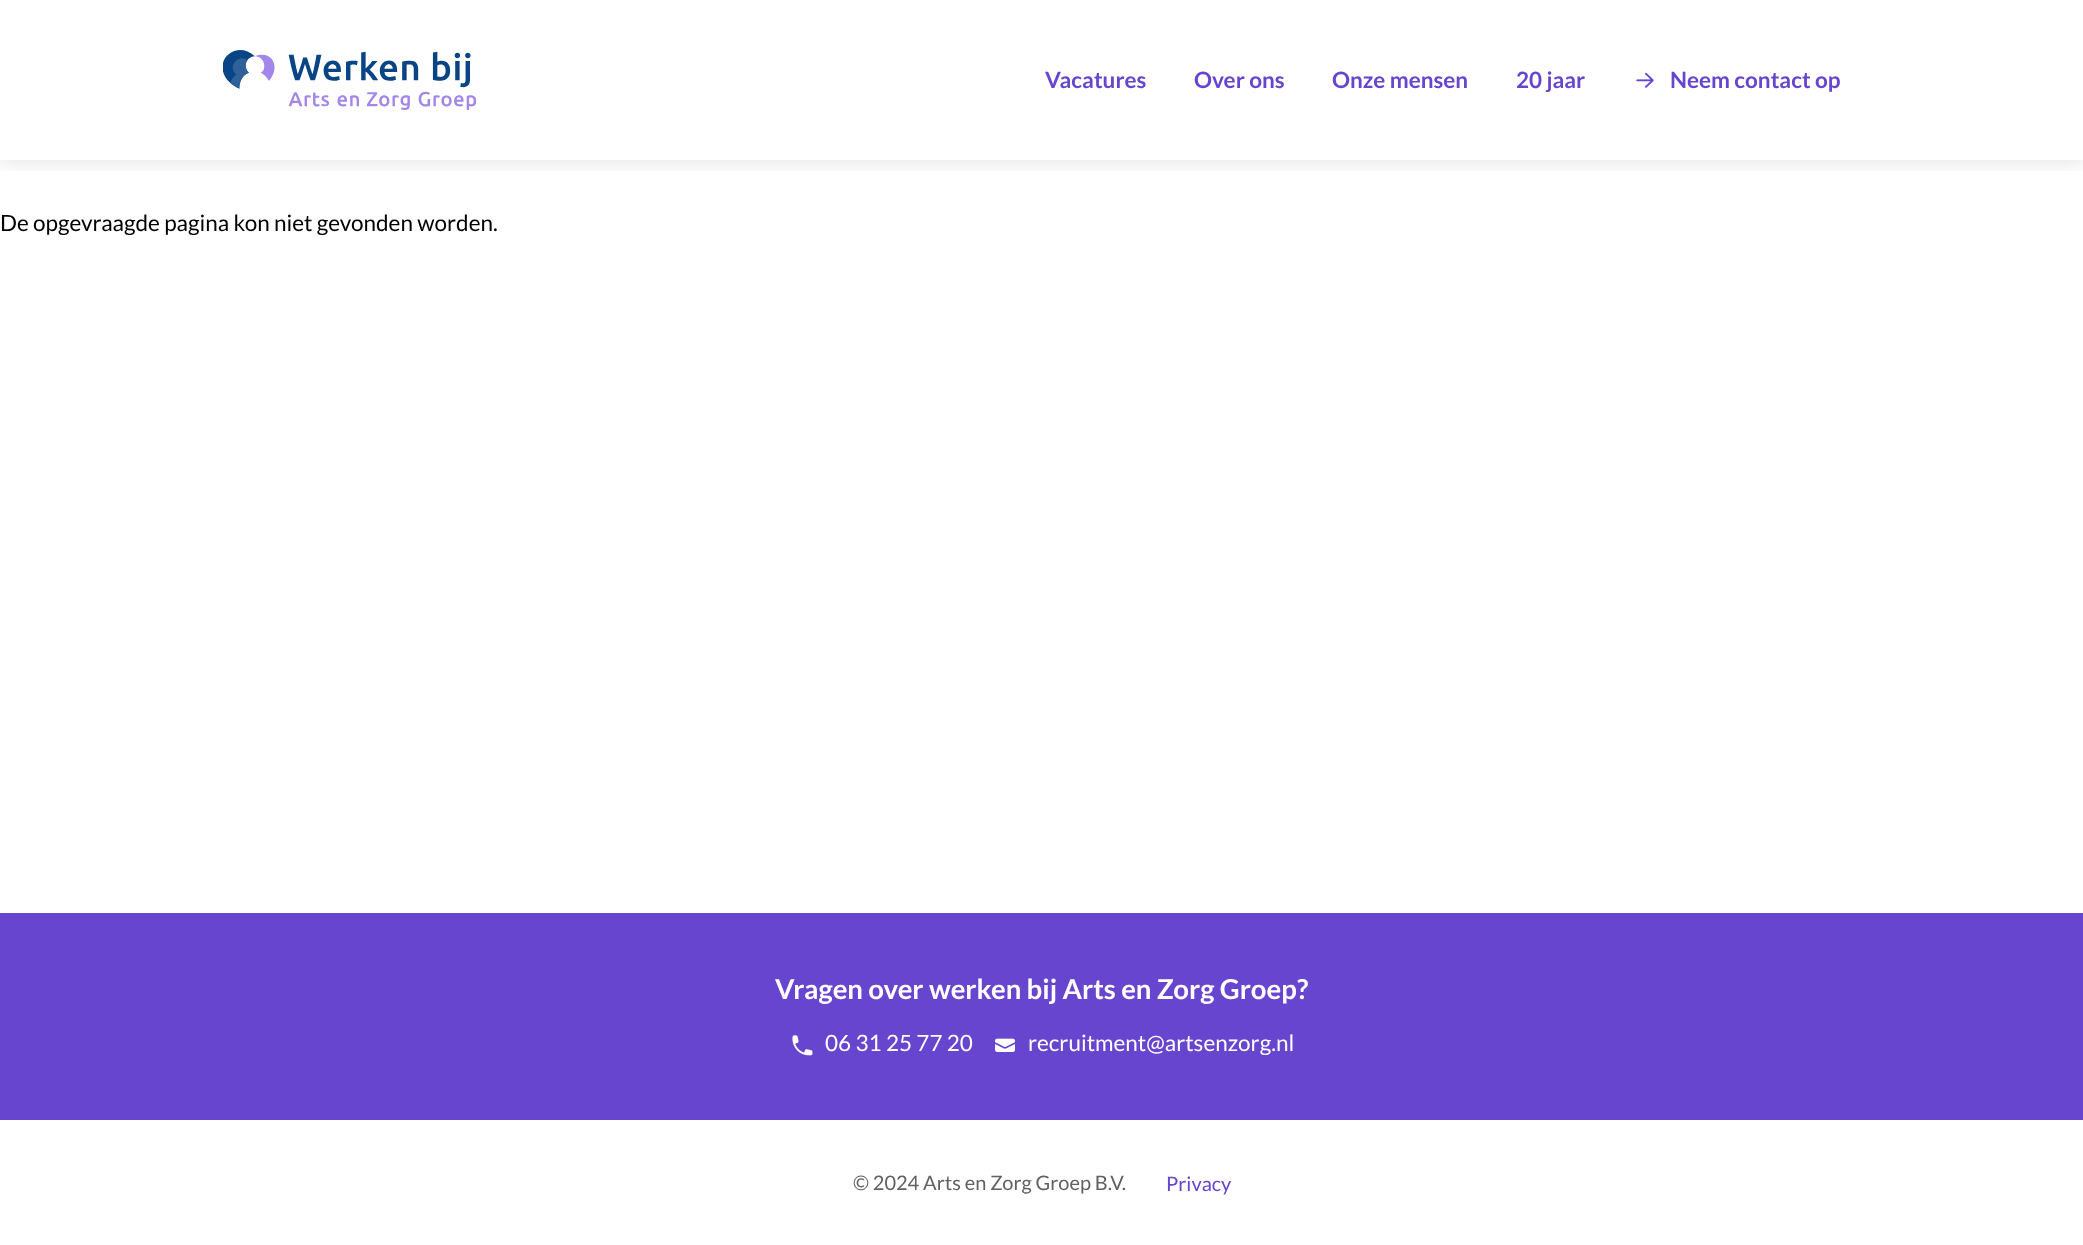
<svg xmlns="http://www.w3.org/2000/svg" width="2083" height="1245" viewBox="0 0 2083 1245">
  <style>
    .t1 { font: bold 22.5px Lato; fill: #6845cf; }
    .t2 { font: 22.5px Lato; fill: #000; }
    .t3 { font: bold 27.5px Lato; fill: #fff; }
    .t4 { font: 22.5px Lato; fill: #fff; }
    .t5 { font: 20px Lato; fill: #616161; }
    .t6 { font: 20px Lato; fill: #6845cf; }
  </style>
  <defs>
    <clipPath id="clip1"><rect x="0" y="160" width="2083" height="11"/></clipPath>
  </defs>
  <rect width="100%" height="100%" fill="#fff"/>
  <g clip-path="url(#clip1)">
    <rect x="0" y="3" width="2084" height="160" fill="#0000001a" filter="blur(10px)"/>
  </g>
  <image x="223" y="50" width="253" height="60" href="images/1.png"/>
  <text x="1045" y="88" class="t1">Vacatures</text>
  <text x="1194" y="88" class="t1">Over ons</text>
  <text x="1332" y="88" class="t1">Onze mensen</text>
  <text x="1516" y="88" class="t1">20 jaar</text>
  <image x="1636" y="72" width="18" height="16" href="images/2.png"/>
  <text x="1670" y="88" class="t1">Neem contact op</text>
  <text x="0" y="231" class="t2">De opgevraagde pagina kon niet gevonden worden.</text>
  <rect x="0" y="913" width="2083" height="207" fill="#6845cf"/>
  <text x="775" y="999" class="t3">Vragen over werken bij Arts en Zorg Groep?</text>
  <image x="792" y="1035" width="21" height="21" href="images/3.png"/>
  <text x="825" y="1051" class="t4">06 31 25 77 20</text>
  <image x="995" y="1038" width="20" height="14" href="images/4.png"/>
  <text x="1028" y="1051" class="t4">recruitment@artsenzorg.nl</text>
  <text x="853" y="1190" class="t5">© 2024 Arts en Zorg Groep B.V.</text>
  <text x="1166" y="1191" class="t6">Privacy</text>
</svg>
